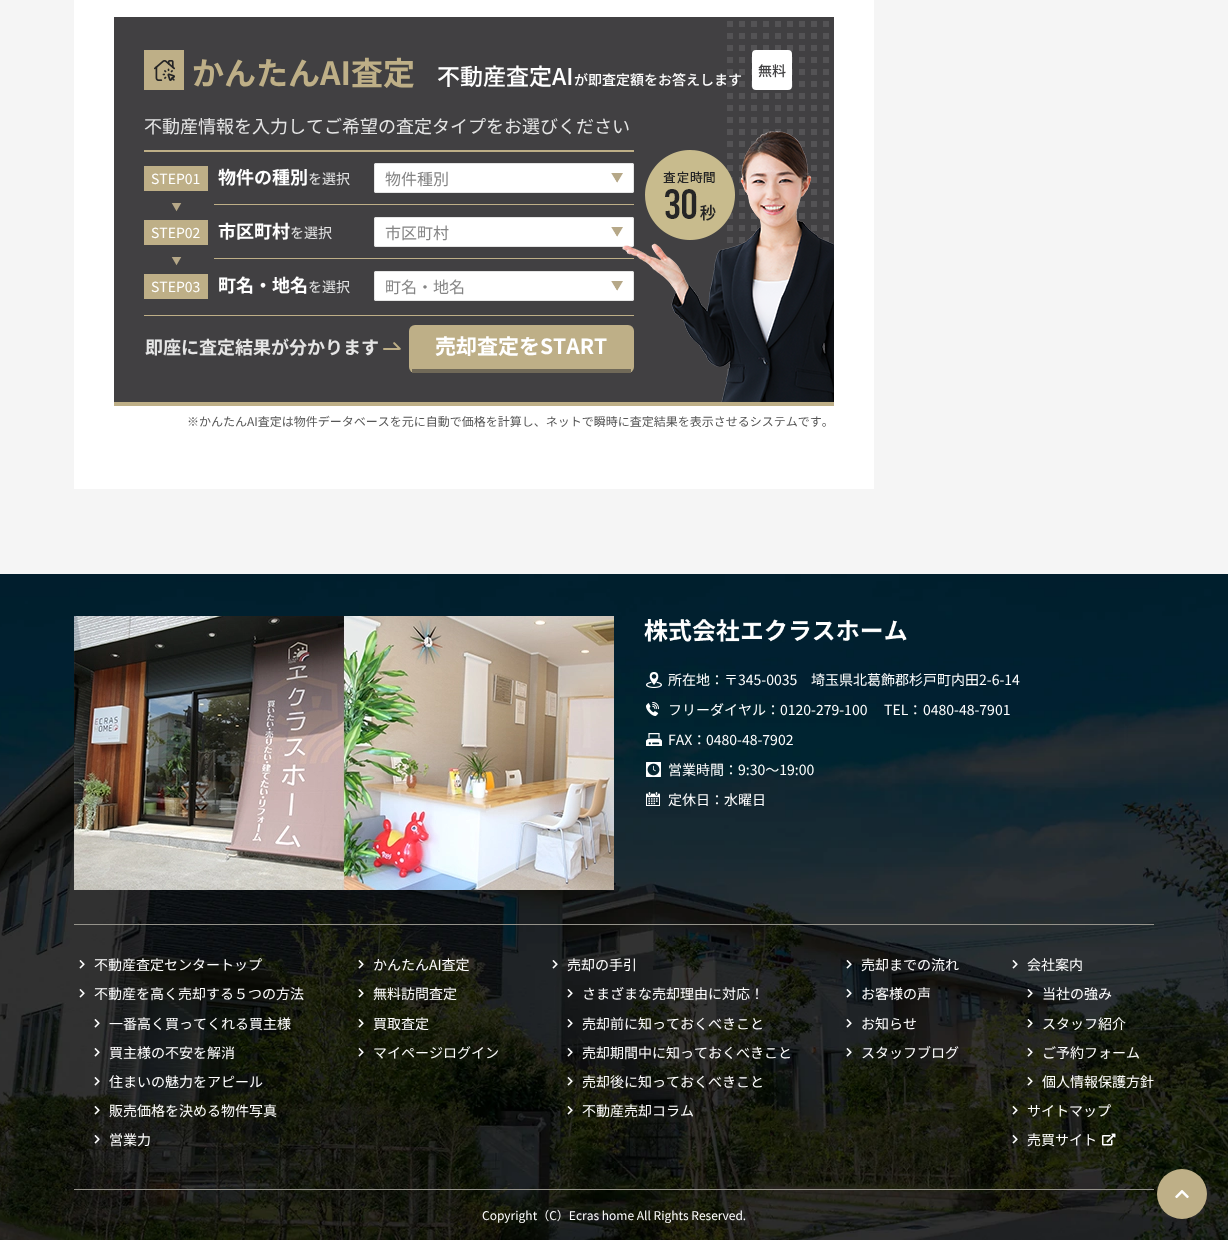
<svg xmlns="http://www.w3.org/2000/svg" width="1228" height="1240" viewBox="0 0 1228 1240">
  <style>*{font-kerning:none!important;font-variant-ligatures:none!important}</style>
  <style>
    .t1 { font: bold 32px Noto Sans JP; fill: #beaf87; }
    .t2 { font: 500 23px Noto Sans JP; fill: #fff; }
    .t3 { font: 500 14px Noto Sans JP; fill: #fff; }
    .t4 { font: 500 14px Noto Sans JP; fill: #414042; }
    .t5 { font: 18px Noto Sans JP; fill: #e5e5e5; }
    .t6 { font: 14px Noto Sans JP; fill: #fff; }
    .t7 { font: bold 18px Noto Sans JP; fill: #fff; }
    .t8 { font: 14px Noto Sans JP; fill: #e5e5e5; }
    .t9 { font: 16px Noto Sans JP; fill: #858585; }
    .t10 { font: bold 18px Noto Sans JP; fill: #e5e5e5; }
    .t11 { font: bold 21px Noto Sans JP; fill: #fff; }
    .t12 { font: 12px Noto Sans JP; fill: #555; }
    .t13 { font: 12px Noto Sans JP; fill: #fff; }
  </style>
  <rect width="100%" height="100%" fill="#f5f5f5"/>
  <rect x="74" y="0" width="800" height="489" fill="#fff"/>
  <rect x="114" y="17" width="720" height="385" fill="#414042"/>
  <rect x="114" y="402" width="720" height="4" fill="#beaf87"/>
  <image x="727" y="21" width="102" height="356" href="images/1.png"/>
  <image x="144" y="50" width="40" height="40" href="images/2.png"/>
  <text x="192" y="85" class="t1">かんたんAI査定</text>
  <text x="437" y="85" class="t2">不動産査定AI</text>
  <text x="574" y="85" class="t3">が即査定額をお答えします</text>
  <rect x="752" y="50" width="40" height="40" rx="4" fill="#fff"/>
  <text x="758" y="76" class="t4">無料</text>
  <text x="144" y="133" class="t5">不動産情報を入力してご希望の査定タイプをお選びください</text>
  <rect x="144" y="150" width="490" height="2" fill="#beaf87"/>
  <rect x="144" y="315" width="490" height="1" fill="#beaf87"/>
  <rect x="144" y="166" width="64" height="25" fill="#beaf87"/>
  <text x="151" y="184" class="t6">STEP01</text>
  <rect x="214" y="204" width="420" height="1" fill="#beaf87"/>
  <text x="218" y="184" class="t7">物件の種別</text>
  <text x="308" y="184" class="t8">を選択</text>
  <rect x="374" y="163" width="260" height="30" rx="2" fill="#fff"/>
  <image x="611" y="173" width="12" height="10" href="images/3.png"/>
  <rect x="374.5" y="163.5" width="259" height="29" rx="1.5" fill="none" stroke="#e5e5e5"/>
  <text x="385" y="185" class="t9">物件種別</text>
  <image x="171" y="203" width="11" height="9" href="images/4.png"/>
  <rect x="144" y="220" width="64" height="25" fill="#beaf87"/>
  <text x="151" y="238" class="t6">STEP02</text>
  <rect x="214" y="258" width="420" height="1" fill="#beaf87"/>
  <text x="218" y="238" class="t7">市区町村</text>
  <text x="290" y="238" class="t8">を選択</text>
  <rect x="374" y="217" width="260" height="30" rx="2" fill="#fff"/>
  <image x="611" y="227" width="12" height="10" href="images/3.png"/>
  <rect x="374.5" y="217.5" width="259" height="29" rx="1.5" fill="none" stroke="#e5e5e5"/>
  <text x="385" y="239" class="t9">市区町村</text>
  <image x="171" y="257" width="11" height="9" href="images/4.png"/>
  <rect x="144" y="274" width="64" height="25" fill="#beaf87"/>
  <text x="151" y="292" class="t6">STEP03</text>
  <text x="218" y="292" class="t7">町名・地名</text>
  <text x="308" y="292" class="t8">を選択</text>
  <rect x="374" y="271" width="260" height="30" rx="2" fill="#fff"/>
  <image x="611" y="281" width="12" height="10" href="images/3.png"/>
  <rect x="374.5" y="271.5" width="259" height="29" rx="1.5" fill="none" stroke="#e5e5e5"/>
  <text x="385" y="293" class="t9">町名・地名</text>
  <rect x="409" y="325" width="225" height="48" rx="6" fill="#beaf87"/>
  <rect x="412" y="369" width="219" height="4" fill="#706958"/>
  <image x="622" y="131" width="212" height="271" href="images/5.png"/>
  <image x="383" y="342" width="18" height="8" href="images/6.png"/>
  <text x="145" y="354" class="t10">即座に査定結果が分かります</text>
  <text x="435" y="354" class="t11">売却査定をSTART</text>
  <text x="187" y="426" class="t12">※かんたんAI査定は物件データベースを元に自動で価格を計算し、ネットで瞬時に査定結果を表示させるシステムです。</text>
  <image x="0" y="574" width="1228" height="666" href="images/7.png"/>
  <image x="74" y="616" width="540" height="274" href="images/8.png"/>
  <image x="644" y="619" width="263" height="23" href="images/9.png"/>
  <image x="646" y="672" width="16" height="16" href="images/10.png"/>
  <text x="668" y="685" class="t6">所在地：</text>
  <text x="724" y="685" class="t6">〒345-0035</text>
  <text x="811" y="685" class="t6">埼玉県北葛飾郡杉戸町内田2-6-14</text>
  <image x="646" y="702" width="13" height="14" href="images/11.png"/>
  <text x="668" y="715" class="t6">フリーダイヤル：</text>
  <text x="780" y="715" class="t6">0120-279-100</text>
  <text x="884" y="715" class="t6">TEL：</text>
  <text x="923" y="715" class="t6">0480-48-7901</text>
  <image x="646" y="733" width="16" height="13" href="images/12.png"/>
  <text x="668" y="745" class="t6">FAX：</text>
  <text x="706" y="745" class="t6">0480-48-7902</text>
  <image x="646" y="762" width="15" height="15" href="images/13.png"/>
  <text x="668" y="775" class="t6">営業時間：</text>
  <text x="738" y="775" class="t6">9:30～19:00</text>
  <image x="646" y="792" width="14" height="14" href="images/14.png"/>
  <text x="668" y="805" class="t6">定休日：</text>
  <text x="724" y="805" class="t6">水曜日</text>
  <rect x="74" y="924" width="1080" height="1" fill="#95938b"/>
  <rect x="74" y="1189" width="1080" height="1" fill="#95938b"/>
  <image x="79" y="960" width="6" height="9" href="images/15.png"/>
  <text x="94" y="970" class="t6">不動産査定センタートップ</text>
  <image x="79" y="989" width="6" height="9" href="images/16.png"/>
  <text x="94" y="999" class="t6">不動産を高く売却する５つの方法</text>
  <image x="94" y="1019" width="6" height="9" href="images/17.png"/>
  <text x="109" y="1029" class="t6">一番高く買ってくれる買主様</text>
  <image x="94" y="1048" width="6" height="9" href="images/18.png"/>
  <text x="109" y="1058" class="t6">買主様の不安を解消</text>
  <image x="94" y="1077" width="6" height="9" href="images/19.png"/>
  <text x="109" y="1087" class="t6">住まいの魅力をアピール</text>
  <image x="94" y="1106" width="6" height="9" href="images/20.png"/>
  <text x="109" y="1116" class="t6">販売価格を決める物件写真</text>
  <image x="94" y="1135" width="6" height="9" href="images/21.png"/>
  <text x="109" y="1145" class="t6">営業力</text>
  <image x="358" y="960" width="6" height="9" href="images/22.png"/>
  <text x="373" y="970" class="t6">かんたんAI査定</text>
  <image x="358" y="989" width="6" height="9" href="images/23.png"/>
  <text x="373" y="999" class="t6">無料訪問査定</text>
  <image x="358" y="1019" width="6" height="9" href="images/24.png"/>
  <text x="373" y="1029" class="t6">買取査定</text>
  <image x="358" y="1048" width="6" height="9" href="images/25.png"/>
  <text x="373" y="1058" class="t6">マイページログイン</text>
  <image x="552" y="960" width="6" height="9" href="images/26.png"/>
  <text x="567" y="970" class="t6">売却の手引</text>
  <image x="567" y="989" width="6" height="9" href="images/27.png"/>
  <text x="582" y="999" class="t6">さまざまな売却理由に対応！</text>
  <image x="567" y="1019" width="6" height="9" href="images/28.png"/>
  <text x="582" y="1029" class="t6">売却前に知っておくべきこと</text>
  <image x="567" y="1048" width="6" height="9" href="images/29.png"/>
  <text x="582" y="1058" class="t6">売却期間中に知っておくべきこと</text>
  <image x="567" y="1077" width="6" height="9" href="images/30.png"/>
  <text x="582" y="1087" class="t6">売却後に知っておくべきこと</text>
  <image x="567" y="1106" width="6" height="9" href="images/31.png"/>
  <text x="582" y="1116" class="t6">不動産売却コラム</text>
  <image x="846" y="960" width="6" height="9" href="images/32.png"/>
  <text x="861" y="970" class="t6">売却までの流れ</text>
  <image x="846" y="989" width="6" height="9" href="images/33.png"/>
  <text x="861" y="999" class="t6">お客様の声</text>
  <image x="846" y="1019" width="6" height="9" href="images/34.png"/>
  <text x="861" y="1029" class="t6">お知らせ</text>
  <image x="846" y="1048" width="6" height="9" href="images/35.png"/>
  <text x="861" y="1058" class="t6">スタッフブログ</text>
  <image x="1012" y="960" width="6" height="9" href="images/36.png"/>
  <text x="1027" y="970" class="t6">会社案内</text>
  <image x="1027" y="989" width="6" height="9" href="images/37.png"/>
  <text x="1042" y="999" class="t6">当社の強み</text>
  <image x="1027" y="1019" width="6" height="9" href="images/38.png"/>
  <text x="1042" y="1029" class="t6">スタッフ紹介</text>
  <image x="1027" y="1048" width="6" height="9" href="images/39.png"/>
  <text x="1042" y="1058" class="t6">ご予約フォーム</text>
  <image x="1027" y="1077" width="6" height="9" href="images/40.png"/>
  <text x="1042" y="1087" class="t6">個人情報保護方針</text>
  <image x="1012" y="1106" width="6" height="9" href="images/41.png"/>
  <text x="1027" y="1116" class="t6">サイトマップ</text>
  <image x="1012" y="1135" width="6" height="9" href="images/42.png"/>
  <text x="1027" y="1145" class="t6">売買サイト</text>
  <image x="1102" y="1133" width="14" height="13" href="images/43.png"/>
  <text x="482" y="1220" class="t13">Copyright（C）Ecras home All Rights Reserved.</text>
  <circle cx="1182" cy="1194" r="25" fill="#beaf87"/>
  <image x="1175" y="1190" width="14" height="9" href="images/44.png"/>
</svg>
